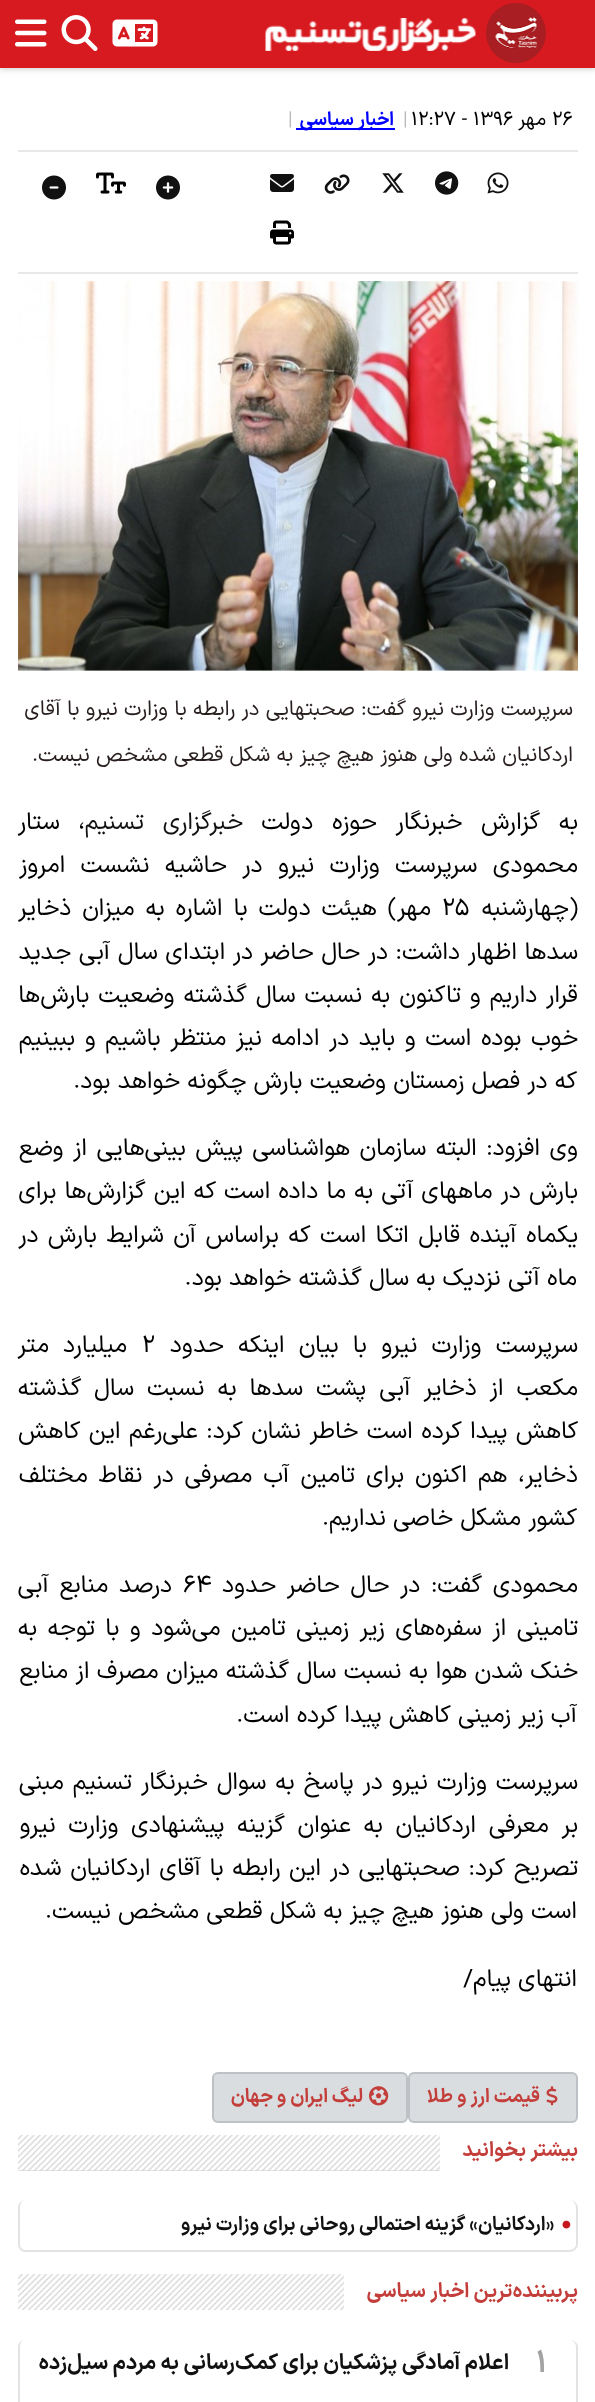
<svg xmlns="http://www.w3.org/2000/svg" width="595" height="2402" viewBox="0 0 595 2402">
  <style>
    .t1 { font: 19.5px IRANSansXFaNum; fill: #000; }
    .t2 { font: 19.5px IRANSansXFaNum; direction: rtl; fill: #000; }
    .t3 { font: 19.25px IRANSansXFaNum; fill: #bbb; }
    .t4 { font: bold 18.75px IRANSansXFaNum; direction: rtl; fill: #00f; }
    .t5 { font: 21.1px IRANSansXFaNum; direction: rtl; fill: #281e1e; }
    .t6 { font: 24px IRANSansXFaNum; direction: rtl; fill: #000; }
    .t7 { font: 24px IRANSansXFaNum; direction: rtl; fill: #111; }
    .t8 { font: 24px IRANSansXFaNum; fill: #000; }
    .t9 { font: bold 19.25px IRANSansXFaNum; direction: rtl; fill: #c33e3a; }
    .t10 { font: bold 20.4px IRANSansXFaNum; direction: rtl; fill: #c33e3a; }
    .t11 { font: bold 19.4px IRANSansXFaNum; direction: rtl; fill: #111; }
    .t12 { font: bold 31px IRANSansXFaNum; fill: #a3a3a3; }
    .t13 { font: bold 21.6px IRANSansXFaNum; direction: rtl; fill: #111; }
  </style>
  <rect width="100%" height="100%" fill="#fff"/>
  <rect x="0" y="2" width="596" height="67" fill="#00000033" filter="blur(3px)"/>
  <rect x="0" y="0" width="595" height="68" fill="#d71920"/>
  <circle cx="516" cy="33" r="30" fill="#a91e22"/>
  <image x="492" y="14" width="48" height="38" href="images/1.png"/>
  <image x="265" y="18" width="211" height="33" href="images/2.png"/>
  <image x="112" y="19" width="46" height="28" href="images/3.png"/>
  <image x="61" y="15" width="37" height="36" href="images/4.png"/>
  <image x="15" y="19" width="32" height="28" href="images/5.png"/>
  <text x="552" y="125" class="t1">26</text>
  <text x="546" y="125" class="t2">مهر</text>
  <text x="411" y="125" class="t1">12:27 - 1396</text>
  <text x="403" y="125" class="t3">|</text>
  <rect x="296" y="128" width="99" height="2" fill="#00f"/>
  <text x="394" y="125" class="t4">اخبار سیاسی</text>
  <text x="288" y="125" class="t3">|</text>
  <rect x="18" y="150" width="560" height="2" fill="#e8e8e8"/>
  <rect x="18" y="272" width="560" height="2" fill="#e8e8e8"/>
  <image x="487" y="172" width="22" height="22" href="images/6.png"/>
  <image x="435" y="171" width="24" height="24" href="images/7.png"/>
  <image x="382" y="173" width="22" height="20" href="images/8.png"/>
  <image x="324" y="174" width="26" height="20" href="images/9.png"/>
  <image x="270" y="174" width="24" height="18" href="images/10.png"/>
  <image x="270" y="220" width="24" height="25" href="images/11.png"/>
  <image x="156" y="175" width="24" height="25" href="images/12.png"/>
  <image x="96" y="172" width="30" height="22" href="images/13.png"/>
  <image x="42" y="175" width="24" height="25" href="images/14.png"/>
  <image x="18" y="281" width="560" height="390" href="images/15.png"/>
  <text x="573" y="715" class="t5">سرپرست وزارت نیرو گفت: صحبتهایی در رابطه با وزارت نیرو با آقای</text>
  <text x="573" y="761" class="t5">اردکانیان شده ولی هنوز هیچ چیز به شکل قطعی مشخص نیست.</text>
  <text x="578" y="829" word-spacing="11.5" class="t6">به گزارش خبرنگار حوزه دولت</text>
  <text x="243" y="829" word-spacing="11.5" class="t7">خبرگزاری تسنیم</text>
  <text x="85" y="829" word-spacing="11.5" class="t6">، ستار</text>
  <text x="578" y="872" word-spacing="8.25" class="t6">محمودی سرپرست وزارت نیرو در حاشیه نشست امروز</text>
  <text x="578" y="915" class="t6">(چهارشنبه</text>
  <text x="442" y="915" class="t8">25</text>
  <text x="431" y="915" word-spacing="3.75" class="t6">مهر) هیئت دولت با اشاره به میزان ذخایر</text>
  <text x="578" y="959" word-spacing="0.4" class="t6">سدها اظهار داشت: در حال حاضر در ابتدای سال آبی جدید</text>
  <text x="578" y="1002" word-spacing="1.75" class="t6">قرار داریم و تاکنون به نسبت سال گذشته وضعیت بارش‌ها</text>
  <text x="578" y="1045" word-spacing="2.4" class="t6">خوب بوده است و باید در ادامه نیز منتظر باشیم و ببینیم</text>
  <text x="577" y="1088" class="t6">که در فصل زمستان وضعیت بارش چگونه خواهد بود.</text>
  <text x="578" y="1155" word-spacing="2.25" class="t6">وی افزود: البته سازمان هواشناسی پیش بینی‌هایی از وضع</text>
  <text x="578" y="1198" word-spacing="0.9" class="t6">بارش در ماههای آتی به ما داده است که این گزارش‌ها برای</text>
  <text x="578" y="1242" word-spacing="2.25" class="t6">یکماه آینده قابل اتکا است که براساس آن شرایط بارش در</text>
  <text x="577" y="1285" class="t6">ماه آتی نزدیک به سال گذشته خواهد بود.</text>
  <text x="578" y="1352" word-spacing="7" class="t6">سرپرست وزارت نیرو با بیان اینکه حدود</text>
  <text x="142" y="1352" class="t8">2</text>
  <text x="127" y="1352" word-spacing="7" class="t6">میلیارد متر</text>
  <text x="578" y="1395" word-spacing="5.75" class="t6">مکعب از ذخایر آبی پشت سدها به نسبت سال گذشته</text>
  <text x="578" y="1438" word-spacing="1.25" class="t6">کاهش پیدا کرده است خاطر نشان کرد: علی‌رغم این کاهش</text>
  <text x="578" y="1482" word-spacing="3.75" class="t6">ذخایر، هم اکنون برای تامین آب مصرفی در نقاط مختلف</text>
  <text x="577" y="1525" class="t6">کشور مشکل خاصی نداریم.</text>
  <text x="578" y="1592" word-spacing="3.5" class="t6">محمودی گفت: در حال حاضر حدود</text>
  <text x="183" y="1592" class="t8">64</text>
  <text x="172" y="1592" word-spacing="3.5" class="t6">درصد منابع آبی</text>
  <text x="578" y="1635" word-spacing="3.25" class="t6">تامینی از سفره‌های زیر زمینی تامین می‌شود و با توجه به</text>
  <text x="578" y="1678" word-spacing="0.25" class="t6">خنک شدن هوا به نسبت سال گذشته میزان مصرف از منابع</text>
  <text x="577" y="1722" class="t6">آب زیر زمینی کاهش پیدا کرده است.</text>
  <text x="578" y="1789" word-spacing="1.75" class="t6">سرپرست وزارت نیرو در پاسخ به سوال خبرنگار تسنیم مبنی</text>
  <text x="578" y="1832" word-spacing="5.5" class="t6">بر معرفی اردکانیان به عنوان گزینه پیشنهادی وزارت نیرو</text>
  <text x="578" y="1875" word-spacing="1.5" class="t6">تصریح کرد: صحبتهایی در این رابطه با آقای اردکانیان شده</text>
  <text x="577" y="1918" class="t6">است ولی هنوز هیچ چیز به شکل قطعی مشخص نیست.</text>
  <text x="577" y="1986" class="t6">انتهای پیام/</text>
  <rect x="408" y="2072" width="170" height="51" rx="6" fill="#dadddf"/>
  <rect x="409" y="2073" width="168" height="49" rx="5" fill="none" stroke="#6c757d40" stroke-width="2"/>
  <image x="546" y="2086" width="12" height="20" href="images/16.png"/>
  <text x="540" y="2102" class="t9">قیمت ارز و طلا</text>
  <rect x="212" y="2072" width="196" height="51" rx="6" fill="#dadddf"/>
  <rect x="213" y="2073" width="194" height="49" rx="5" fill="none" stroke="#6c757d40" stroke-width="2"/>
  <image x="369" y="2086" width="20" height="20" href="images/17.png"/>
  <text x="363" y="2102" class="t9">لیگ ایران و جهان</text>
  <rect x="18" y="2135" width="422" height="36" fill="#cacaca"/>
  <image x="18" y="2135" width="422" height="36" href="images/18.png"/>
  <text x="578" y="2156" class="t10">بیشتر بخوانید</text>
  <path d="M25 2200H570C574 2200 578 2204 578 2208V2244C578 2248 574 2252 570 2252H25C21 2252 18 2248 18 2244V2208C18 2204 21 2200 25 2200ZM25 2200H570C573 2200 576 2204 576 2208V2244C576 2247 573 2250 570 2250H25C22 2250 20 2247 20 2244V2208C20 2204 22 2200 25 2200Z" fill="#e3e3e3" fill-rule="evenodd"/>
  <image x="562" y="2220" width="9" height="9" href="images/19.png"/>
  <text x="554" y="2230" class="t11">«اردکانیان» گزینه احتمالی روحانی برای وزارت نیرو</text>
  <rect x="18" y="2274" width="326" height="36" fill="#cacaca"/>
  <image x="18" y="2274" width="326" height="36" href="images/20.png"/>
  <text x="578" y="2297" class="t10">پربیننده‌ترین اخبار سیاسی</text>
  <path d="M25 2340H570C574 2340 578 2343 578 2347V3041C578 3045 574 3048 570 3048H25C21 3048 18 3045 18 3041V2347C18 2343 21 2340 25 2340ZM25 2340H570C573 2340 576 2343 576 2347V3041C576 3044 573 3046 570 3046H25C22 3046 20 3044 20 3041V2347C20 2343 22 2340 25 2340Z" fill="#e3e3e3" fill-rule="evenodd"/>
  <text x="536" y="2372" class="t12">1</text>
  <text x="509" y="2369" class="t13">اعلام آمادگی پزشکیان برای کمک‌رسانی به مردم سیل‌زده</text>
</svg>
